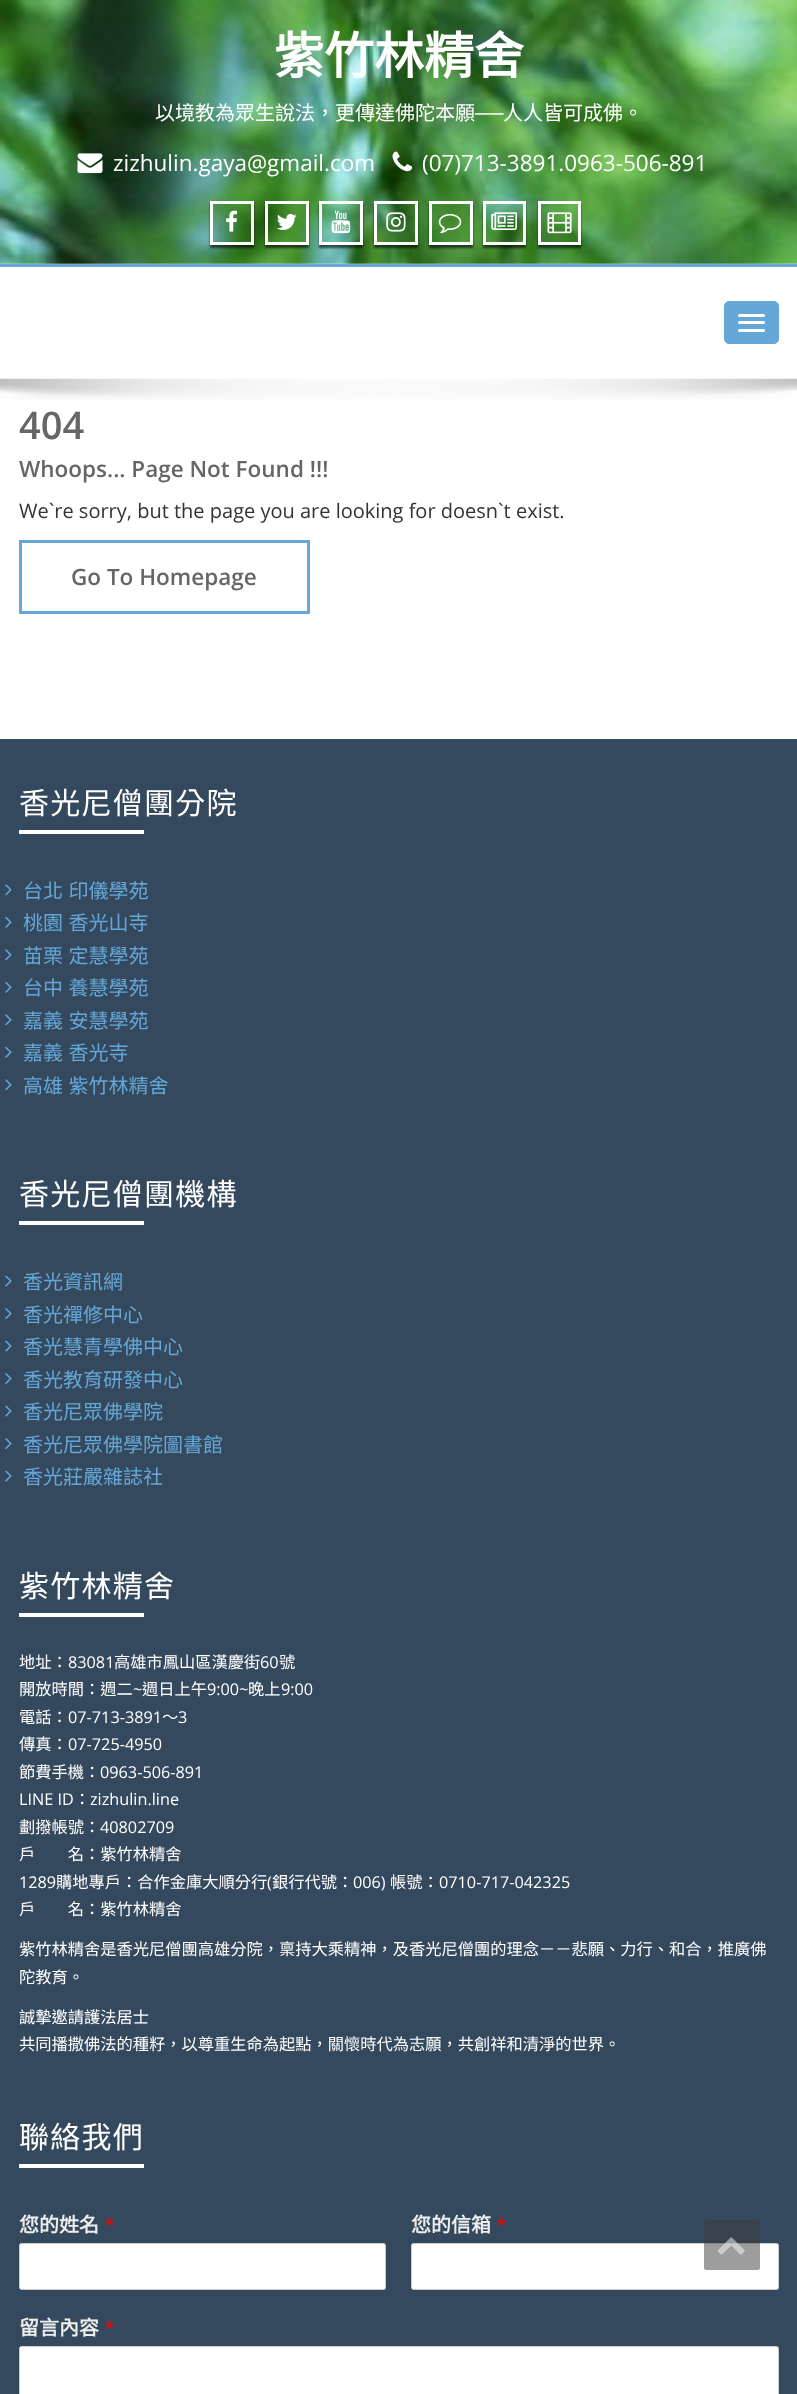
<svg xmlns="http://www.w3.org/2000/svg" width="797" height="2394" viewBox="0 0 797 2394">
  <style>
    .t1 { font: bold 50px Noto Sans CJK TC; fill: #fff; }
    .t2 { font: 20px Noto Sans CJK TC; fill: #fff; }
    .t3 { font: 20px Liberation Sans; fill: #fff; }
    .t4 { font: 22.5px Open Sans; fill: #fff; }
    .t5 { font: 600 38px Open Sans; fill: #666; }
    .t6 { font: 600 22.5px Open Sans; fill: #666; }
    .t7 { font: 20px Open Sans; fill: #333; }
    .t8 { font: 30px Noto Sans CJK TC; letter-spacing: 1.25px; fill: #fff; }
    .t9 { font: 20px Noto Sans CJK TC; fill: #65a7d6; }
    .t10 { font: 16.25px Noto Sans CJK TC; fill: #fff; }
    .t11 { font: 16.25px Open Sans; fill: #fff; }
    .t12 { font: bold 20px Noto Sans CJK TC; fill: #eee; }
    .t13 { font: 20px Open Sans; fill: #f00; }
  </style>
  <defs>
    <clipPath id="clip1"><path d="M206 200H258V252H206ZM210 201H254V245H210Z" clip-rule="evenodd"/></clipPath>
    <clipPath id="clip2"><path d="M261 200H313V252H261ZM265 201H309V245H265Z" clip-rule="evenodd"/></clipPath>
    <clipPath id="clip3"><path d="M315 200H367V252H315ZM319 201H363V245H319Z" clip-rule="evenodd"/></clipPath>
    <clipPath id="clip4"><path d="M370 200H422V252H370ZM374 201H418V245H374Z" clip-rule="evenodd"/></clipPath>
    <clipPath id="clip5"><path d="M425 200H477V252H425ZM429 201H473V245H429Z" clip-rule="evenodd"/></clipPath>
    <clipPath id="clip6"><path d="M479 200H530V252H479ZM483 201H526V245H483Z" clip-rule="evenodd"/></clipPath>
    <clipPath id="clip7"><path d="M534 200H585V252H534ZM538 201H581V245H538Z" clip-rule="evenodd"/></clipPath>
  </defs>
  <rect width="100%" height="100%" fill="#fff"/>
  <image x="0" y="0" width="797" height="264" href="images/1.png"/>
  <text x="274" y="74" class="t1">紫竹林精舍</text>
  <text x="155" y="120" class="t2">以境教為眾生說法，更傳達佛陀本願</text>
  <text x="475" y="120" class="t3">──</text>
  <text x="503" y="120" class="t2">人人皆可成佛。</text>
  <image x="77" y="153" width="26" height="21" href="images/2.png"/>
  <text x="113" y="171" class="t4">zizhulin.gaya@gmail.com</text>
  <image x="392" y="151" width="21" height="21" href="images/3.png"/>
  <text x="422" y="171" class="t4">(07)713-3891.0963-506-891</text>
  <g clip-path="url(#clip1)">
    <rect x="210" y="204" width="44" height="44" fill="#00000099" filter="blur(1px)"/>
  </g>
  <rect x="211.5" y="202.5" width="41" height="41" fill="none" stroke="#fff" stroke-width="3"/>
  <image x="226" y="210" width="12" height="22" href="images/4.png"/>
  <g clip-path="url(#clip2)">
    <rect x="265" y="204" width="44" height="44" fill="#00000099" filter="blur(1px)"/>
  </g>
  <rect x="266.5" y="202.5" width="41" height="41" fill="none" stroke="#fff" stroke-width="3"/>
  <image x="277" y="213" width="20" height="17" href="images/5.png"/>
  <g clip-path="url(#clip3)">
    <rect x="319" y="204" width="44" height="44" fill="#00000099" filter="blur(1px)"/>
  </g>
  <rect x="320.5" y="202.5" width="41" height="41" fill="none" stroke="#fff" stroke-width="3"/>
  <image x="331" y="210" width="20" height="24" href="images/6.png"/>
  <g clip-path="url(#clip4)">
    <rect x="374" y="204" width="44" height="44" fill="#00000099" filter="blur(1px)"/>
  </g>
  <rect x="375.5" y="202.5" width="41" height="41" fill="none" stroke="#fff" stroke-width="3"/>
  <image x="386" y="212" width="20" height="20" href="images/7.png"/>
  <g clip-path="url(#clip5)">
    <rect x="429" y="204" width="44" height="44" fill="#00000099" filter="blur(1px)"/>
  </g>
  <rect x="430.5" y="202.5" width="41" height="41" fill="none" stroke="#fff" stroke-width="3"/>
  <image x="438" y="213" width="24" height="21" href="images/8.png"/>
  <g clip-path="url(#clip6)">
    <rect x="483" y="204" width="43" height="44" fill="#00000099" filter="blur(1px)"/>
  </g>
  <rect x="484.5" y="202.5" width="40" height="41" fill="none" stroke="#fff" stroke-width="3"/>
  <image x="491" y="212" width="26" height="18" href="images/9.png"/>
  <g clip-path="url(#clip7)">
    <rect x="538" y="204" width="43" height="44" fill="#00000099" filter="blur(1px)"/>
  </g>
  <rect x="539.5" y="202.5" width="40" height="41" fill="none" stroke="#fff" stroke-width="3"/>
  <image x="547" y="212" width="25" height="22" href="images/10.png"/>
  <rect x="0" y="264" width="797" height="3" fill="#65a7d6"/>
  <rect x="724.5" y="301.5" width="54" height="42" rx="4.5" fill="#65a7d6" stroke="#65a7d6"/>
  <rect x="738" y="314" width="27" height="3" rx="1.5" fill="#fff"/>
  <rect x="738" y="321" width="27" height="3" rx="1.5" fill="#fff"/>
  <rect x="738" y="329" width="27" height="3" rx="1.5" fill="#fff"/>
  <image x="0" y="378" width="797" height="22" href="images/11.png"/>
  <text x="19" y="439" class="t5">404</text>
  <text x="19" y="477" class="t6">Whoops... Page Not Found !!!</text>
  <text x="19" y="518" class="t7">We`re sorry, but the page you are looking for doesn`t exist.</text>
  <rect x="20.5" y="541.5" width="288" height="71" fill="none" stroke="#65a7d6" stroke-width="3"/>
  <text x="71" y="585" class="t6">Go To Homepage</text>
  <rect x="0" y="739" width="797" height="1655" fill="#34495e"/>
  <text x="19" y="814" class="t8">香光尼僧團分院</text>
  <rect x="19" y="830" width="125" height="4" fill="#fff"/>
  <image x="5" y="884" width="7" height="12" href="images/12.png"/>
  <text x="23" y="898" word-spacing="1" class="t9">台北 印儀學苑</text>
  <image x="5" y="916" width="7" height="12" href="images/13.png"/>
  <text x="23" y="930" word-spacing="1" class="t9">桃園 香光山寺</text>
  <image x="5" y="949" width="7" height="12" href="images/12.png"/>
  <text x="23" y="963" word-spacing="1" class="t9">苗栗 定慧學苑</text>
  <image x="5" y="981" width="7" height="12" href="images/13.png"/>
  <text x="23" y="995" word-spacing="1" class="t9">台中 養慧學苑</text>
  <image x="5" y="1014" width="7" height="12" href="images/12.png"/>
  <text x="23" y="1028" word-spacing="1" class="t9">嘉義 安慧學苑</text>
  <image x="5" y="1046" width="7" height="12" href="images/13.png"/>
  <text x="23" y="1060" word-spacing="1" class="t9">嘉義 香光寺</text>
  <image x="5" y="1079" width="7" height="12" href="images/12.png"/>
  <text x="23" y="1093" word-spacing="1" class="t9">高雄 紫竹林精舍</text>
  <text x="19" y="1205" class="t8">香光尼僧團機構</text>
  <rect x="19" y="1221" width="125" height="4" fill="#fff"/>
  <image x="5" y="1275" width="7" height="12" href="images/14.png"/>
  <text x="23" y="1289" class="t9">香光資訊網</text>
  <image x="5" y="1308" width="7" height="11" href="images/15.png"/>
  <text x="23" y="1322" class="t9">香光禪修中心</text>
  <image x="5" y="1340" width="7" height="12" href="images/14.png"/>
  <text x="23" y="1354" class="t9">香光慧青學佛中心</text>
  <image x="5" y="1373" width="7" height="11" href="images/15.png"/>
  <text x="23" y="1387" class="t9">香光教育研發中心</text>
  <image x="5" y="1405" width="7" height="12" href="images/14.png"/>
  <text x="23" y="1419" class="t9">香光尼眾佛學院</text>
  <image x="5" y="1438" width="7" height="11" href="images/15.png"/>
  <text x="23" y="1452" class="t9">香光尼眾佛學院圖書館</text>
  <image x="5" y="1470" width="7" height="12" href="images/14.png"/>
  <text x="23" y="1484" class="t9">香光莊嚴雜誌社</text>
  <text x="19" y="1597" class="t8">紫竹林精舍</text>
  <rect x="19" y="1613" width="125" height="4" fill="#fff"/>
  <text x="19" y="1668" class="t10">地址：</text>
  <text x="68" y="1668" class="t11">83081</text>
  <text x="114" y="1668" class="t10">高雄市鳳山區漢慶街</text>
  <text x="260" y="1668" class="t11">60</text>
  <text x="279" y="1668" class="t10">號</text>
  <text x="19" y="1695" class="t10">開放時間：週二</text>
  <text x="133" y="1695" class="t11">~</text>
  <text x="142" y="1695" class="t10">週日上午</text>
  <text x="207" y="1695" class="t11">9:00~</text>
  <text x="248" y="1695" class="t10">晚上</text>
  <text x="281" y="1695" class="t11">9:00</text>
  <text x="19" y="1723" class="t10">電話：</text>
  <text x="68" y="1723" class="t11">07-713-3891</text>
  <text x="162" y="1723" class="t10">～</text>
  <text x="178" y="1723" class="t11">3</text>
  <text x="19" y="1750" class="t10">傳真：</text>
  <text x="68" y="1750" class="t11">07-725-4950</text>
  <text x="19" y="1778" class="t10">節費手機：</text>
  <text x="100" y="1778" class="t11">0963-506-891</text>
  <text x="19" y="1805" class="t11">LINE ID</text>
  <text x="74" y="1805" class="t10">：</text>
  <text x="90" y="1805" class="t11">zizhulin.line</text>
  <text x="19" y="1833" class="t10">劃撥帳號：</text>
  <text x="100" y="1833" class="t11">40802709</text>
  <text x="19" y="1860" class="t10">戶　　名：紫竹林精舍</text>
  <text x="19" y="1888" class="t11">1289</text>
  <text x="56" y="1888" class="t10">購地專戶：合作金庫大順分行</text>
  <text x="267" y="1888" class="t11">(</text>
  <text x="272" y="1888" class="t10">銀行代號：</text>
  <text x="353" y="1888" class="t11">006)</text>
  <text x="390" y="1888" class="t10">帳號：</text>
  <text x="439" y="1888" class="t11">0710-717-042325</text>
  <text x="19" y="1915" class="t10">戶　　名：紫竹林精舍</text>
  <text x="19" y="1955" class="t10">紫竹林精舍是香光尼僧團高雄分院，稟持大乘精神，及香光尼僧團的理念－－悲願、力行、和合，推廣佛</text>
  <text x="19" y="1983" class="t10">陀教育。</text>
  <text x="19" y="2023" class="t10">誠摯邀請護法居士</text>
  <text x="19" y="2050" class="t10">共同播撒佛法的種籽，以尊重生命為起點，關懷時代為志願，共創祥和清淨的世界。</text>
  <text x="19" y="2148" class="t8">聯絡我們</text>
  <rect x="19" y="2164" width="125" height="4" fill="#fff"/>
  <text x="19" y="2232" class="t12">您的姓名</text>
  <text x="104" y="2232" class="t13">*</text>
  <rect x="19.5" y="2243.5" width="366" height="46" rx="2" fill="#fff" stroke="#ccc"/>
  <text x="411" y="2232" class="t12">您的信箱</text>
  <text x="496" y="2232" class="t13">*</text>
  <rect x="411.5" y="2243.5" width="367" height="46" rx="2" fill="#fff" stroke="#ccc"/>
  <text x="19" y="2335" class="t12">留言內容</text>
  <text x="104" y="2335" class="t13">*</text>
  <rect x="19.5" y="2346.5" width="759" height="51" rx="2" fill="#fff" stroke="#ccc"/>
  <rect x="704" y="2220" width="56" height="50" rx="2.5" fill="#3b3b3b80"/>
  <image x="717" y="2237" width="28" height="18" href="images/16.png"/>
</svg>
